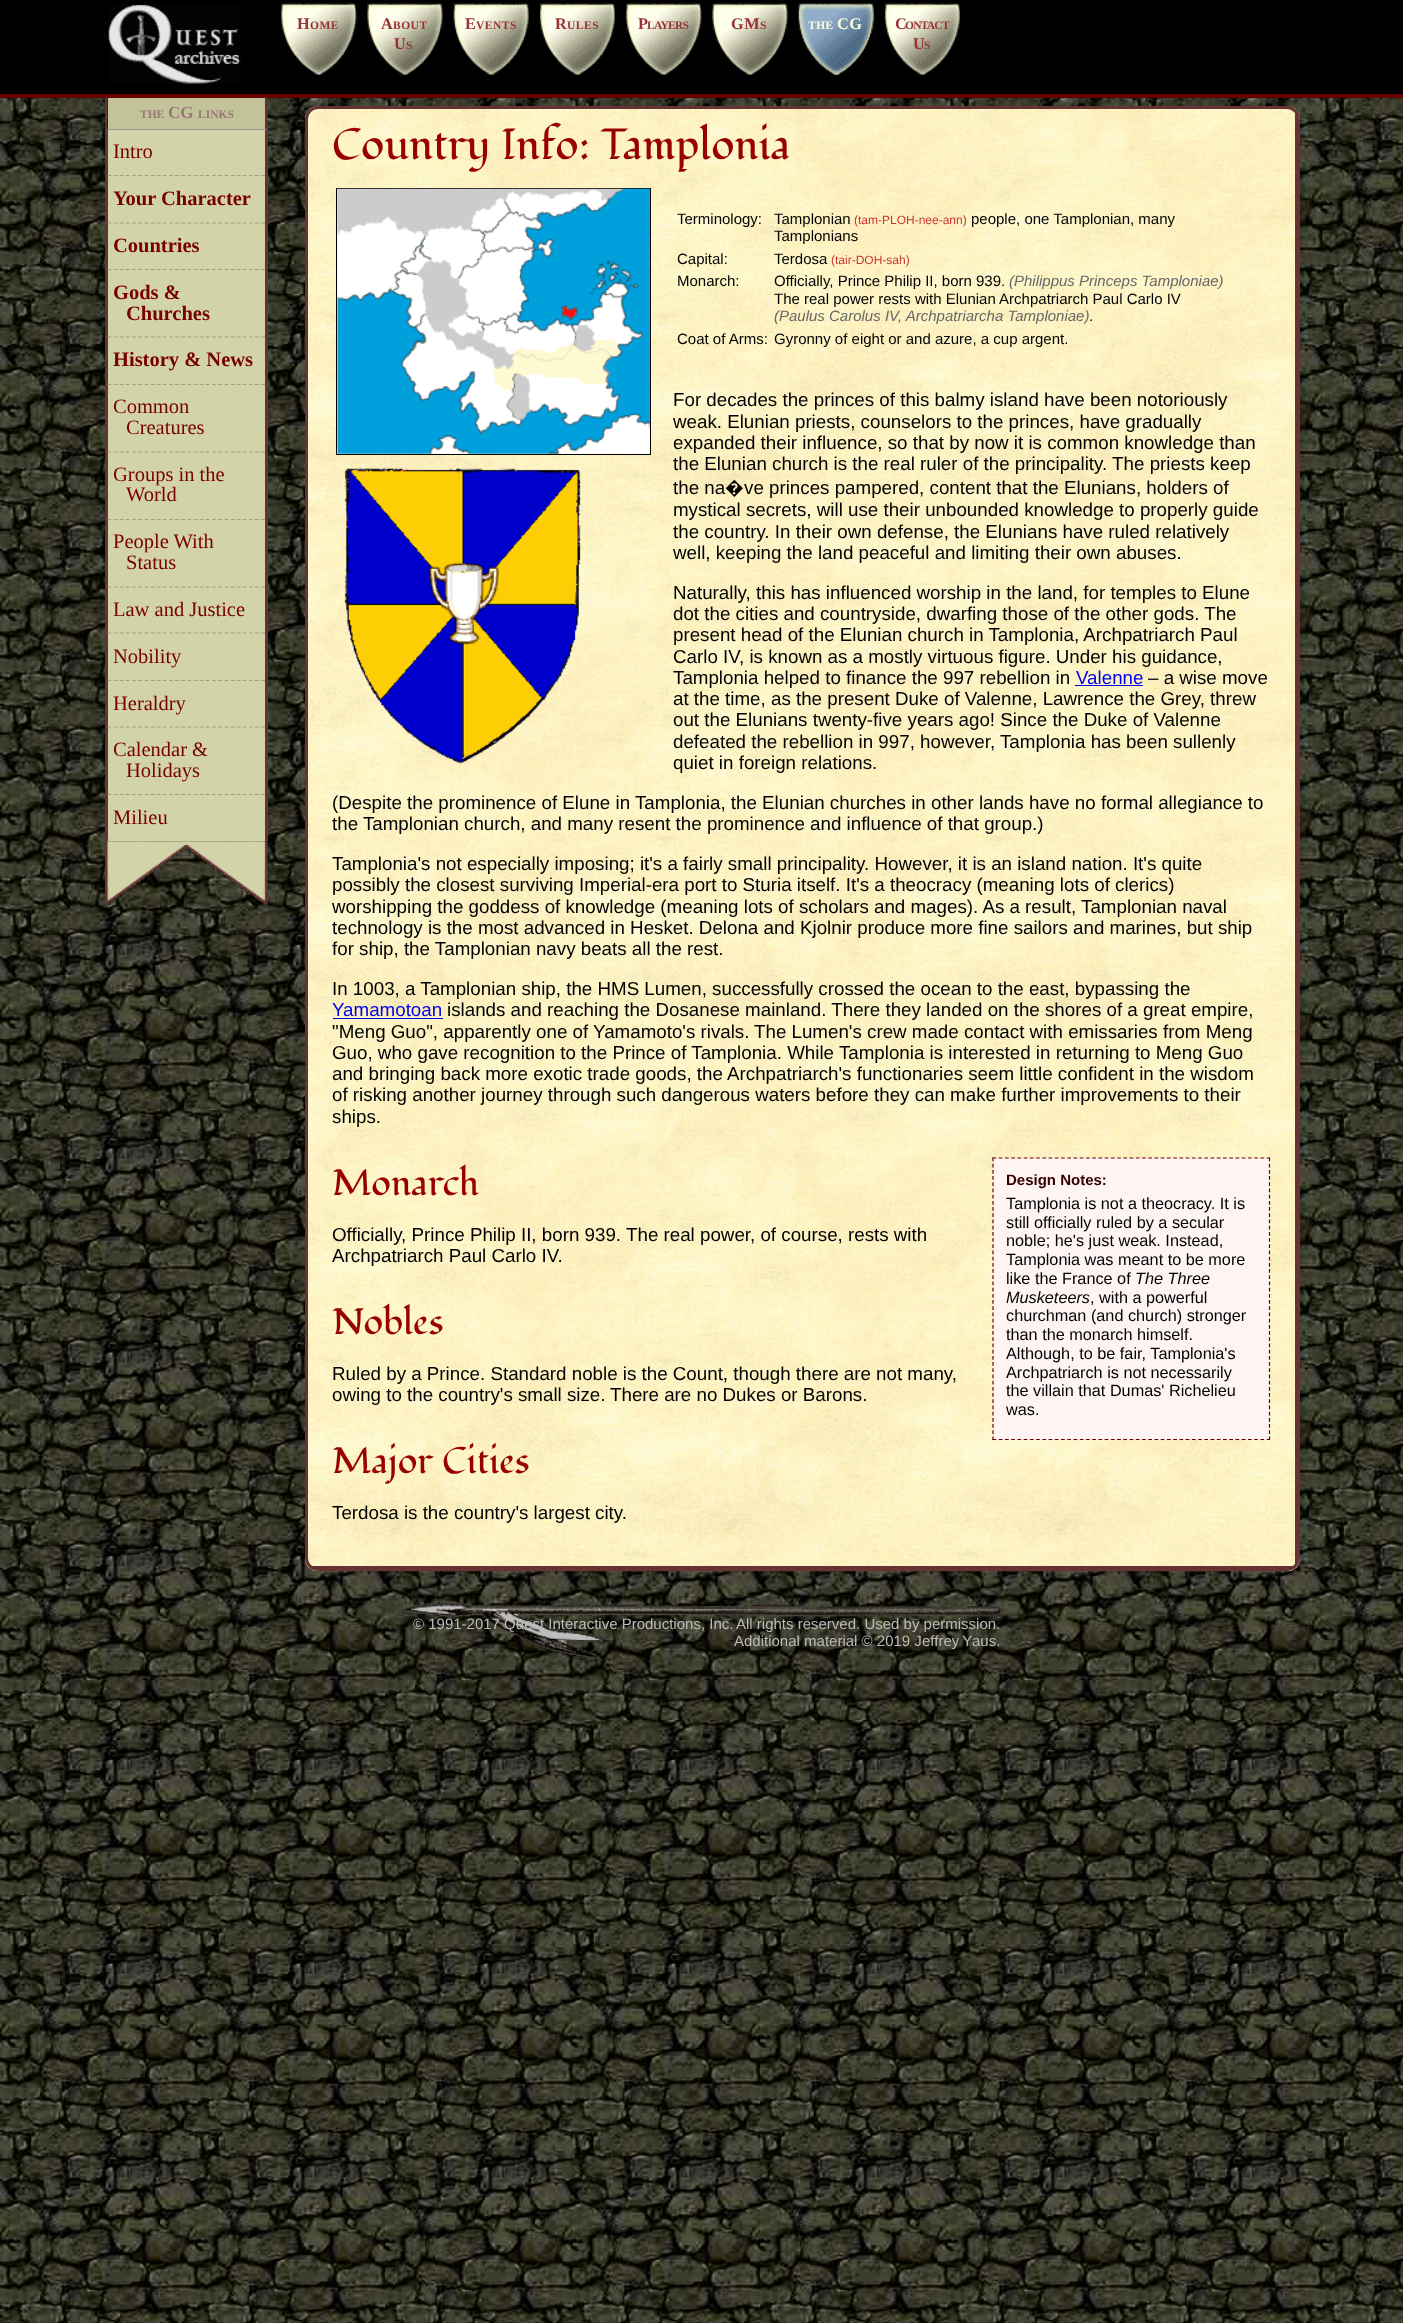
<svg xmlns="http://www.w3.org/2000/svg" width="1403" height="2323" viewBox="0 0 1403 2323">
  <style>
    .t1 { font: bold 16.25px Liberation Serif; letter-spacing: 0.5px; fill: #933; }
    .t2 { font: bold 11.5px Liberation Serif; letter-spacing: 0.5px; fill: #933; }
    .t3 { font: bold 16.25px Liberation Serif; letter-spacing: -0.75px; fill: #933; }
    .t4 { font: bold 11.5px Liberation Serif; letter-spacing: -0.75px; fill: #933; }
    .t5 { font: bold 11.5px Liberation Serif; letter-spacing: 0.5px; fill: #ffd; }
    .t6 { font: bold 16.25px Liberation Serif; letter-spacing: 0.5px; fill: #ffd; }
    .t7 { font: bold 11.5px Liberation Serif; fill: #977; }
    .t8 { font: bold 17px Liberation Serif; fill: #977; }
    .t9 { font: 20.5px Liberation Serif; fill: #700; }
    .t10 { font: bold 20.5px Liberation Serif; fill: #700; }
    .t11 { font: 43.25px Fondamento; fill: #900; }
    .t12 { font: 15px Liberation Sans; fill: #000; }
    .t13 { font: 12px Liberation Sans; fill: #c33; }
    .t14 { font: italic 15px Liberation Sans; fill: #666; }
    .t15 { font: 18.75px Liberation Sans; fill: #000; }
    .t16 { font: 18.75px Noto Sans; fill: #000; }
    .t17 { font: 18.75px Liberation Sans; fill: #00e; }
    .t18 { font: 36.5px Fondamento; fill: #900; }
    .t19 { font: bold 15px Liberation Sans; fill: #300; }
    .t20 { font: 16.25px Liberation Sans; fill: #000; }
    .t21 { font: italic 16.25px Liberation Sans; fill: #000; }
    .t22 { font: 15px Liberation Sans; fill: #bbb; }
  </style>
  <rect width="100%" height="100%" fill="#fff"/>
  <image x="0" y="98" width="1403" height="2225" href="images/1.png"/>
  <rect x="0" y="0" width="1403" height="94" fill="#000"/>
  <rect x="0" y="94" width="1403" height="4" fill="#600"/>
  <image x="108" y="5" width="133" height="79" href="images/2.png"/>
  <image x="281" y="3" width="76" height="72" href="images/3.png"/>
  <text x="297" y="29" class="t1">H</text>
  <text x="310" y="29" class="t2">OME</text>
  <image x="367" y="3" width="76" height="72" href="images/4.png"/>
  <text x="381" y="29" class="t1">A</text>
  <text x="393" y="29" class="t2">BOUT</text>
  <text x="394" y="49" class="t1">U</text>
  <text x="406" y="49" class="t2">S</text>
  <image x="453" y="3" width="76" height="72" href="images/5.png"/>
  <text x="465" y="29" class="t1">E</text>
  <text x="476" y="29" class="t2">VENTS</text>
  <image x="540" y="3" width="75" height="72" href="images/6.png"/>
  <text x="555" y="29" class="t1">R</text>
  <text x="567" y="29" class="t2">ULES</text>
  <image x="626" y="3" width="76" height="72" href="images/3.png"/>
  <text x="638" y="29" class="t3">P</text>
  <text x="647" y="29" class="t4">LAYERS</text>
  <image x="712" y="3" width="76" height="72" href="images/7.png"/>
  <text x="731" y="29" class="t1">GM</text>
  <text x="760" y="29" class="t2">S</text>
  <image x="798" y="3" width="76" height="72" href="images/8.png"/>
  <text x="808" y="29" class="t5">THE</text>
  <text x="837" y="29" class="t6">CG</text>
  <image x="885" y="3" width="75" height="72" href="images/9.png"/>
  <text x="895" y="29" class="t3">C</text>
  <text x="905" y="29" class="t4">ONTACT</text>
  <text x="913" y="49" class="t3">U</text>
  <text x="924" y="49" class="t4">S</text>
  <image x="105" y="841" width="163" height="66" href="images/10.png"/>
  <rect x="108" y="98" width="157" height="31" fill="#c3c399"/>
  <path d="M267.5 97.5V130L265 129V97.5Z" fill="#633"/>
  <path d="M268 130H105L108 129H265Z" fill="#999"/>
  <path d="M105 130V97.5H107.5V129Z" fill="#633"/>
  <text x="140" y="118" class="t7">THE</text>
  <text x="168" y="118" class="t8">CG</text>
  <text x="198" y="118" class="t7">LINKS</text>
  <rect x="108" y="130" width="157" height="711" fill="#d3d3a9"/>
  <rect x="265" y="130" width="3" height="711" fill="#633"/>
  <rect x="105" y="130" width="3" height="711" fill="#633"/>
  <path d="M107.5 175.5H265" fill="none" stroke="#a98" stroke-width="1.2" stroke-dasharray="3.75 2.4"/>
  <text x="113" y="158" class="t9">Intro</text>
  <path d="M107.5 223H265" fill="none" stroke="#a98" stroke-width="1.2" stroke-dasharray="3.75 2.4"/>
  <text x="113" y="205" class="t10">Your Character</text>
  <path d="M107.5 269.5H265" fill="none" stroke="#a98" stroke-width="1.2" stroke-dasharray="3.75 2.4"/>
  <text x="113" y="252" class="t10">Countries</text>
  <path d="M107.5 337H265" fill="none" stroke="#a98" stroke-width="1.2" stroke-dasharray="3.75 2.4"/>
  <text x="113" y="299" class="t10">Gods &amp;</text>
  <text x="126" y="320" class="t10">Churches</text>
  <path d="M107.5 384.5H265" fill="none" stroke="#a98" stroke-width="1.2" stroke-dasharray="3.75 2.4"/>
  <text x="113" y="366" class="t10">History &amp; News</text>
  <path d="M107.5 452H265" fill="none" stroke="#a98" stroke-width="1.2" stroke-dasharray="3.75 2.4"/>
  <text x="113" y="413" class="t9">Common</text>
  <text x="126" y="434" class="t9">Creatures</text>
  <path d="M107.5 519.5H265" fill="none" stroke="#a98" stroke-width="1.2" stroke-dasharray="3.75 2.4"/>
  <text x="113" y="481" class="t9">Groups in the</text>
  <text x="126" y="501" class="t9">World</text>
  <path d="M107.5 587H265" fill="none" stroke="#a98" stroke-width="1.2" stroke-dasharray="3.75 2.4"/>
  <text x="113" y="548" class="t9">People With</text>
  <text x="126" y="569" class="t9">Status</text>
  <path d="M107.5 633H265" fill="none" stroke="#a98" stroke-width="1.2" stroke-dasharray="3.75 2.4"/>
  <text x="113" y="616" class="t9">Law and Justice</text>
  <path d="M107.5 680.5H265" fill="none" stroke="#a98" stroke-width="1.2" stroke-dasharray="3.75 2.4"/>
  <text x="113" y="663" class="t9">Nobility</text>
  <path d="M107.5 727H265" fill="none" stroke="#a98" stroke-width="1.2" stroke-dasharray="3.75 2.4"/>
  <text x="113" y="710" class="t9">Heraldry</text>
  <path d="M107.5 794.5H265" fill="none" stroke="#a98" stroke-width="1.2" stroke-dasharray="3.75 2.4"/>
  <text x="113" y="756" class="t9">Calendar &amp;</text>
  <text x="126" y="777" class="t9">Holidays</text>
  <text x="113" y="824" class="t9">Milieu</text>
  <image x="305" y="106" width="995" height="1466" href="images/11.png"/>
  <rect x="306.5" y="107.5" width="992" height="1462" rx="11.5" fill="none" stroke="#633" stroke-width="3"/>
  <rect x="1295" y="113" width="2" height="1452" fill="#633"/>
  <rect x="311" y="1566" width="983" height="2" fill="#633"/>
  <text x="332" y="159" class="t11">Country Info: Tamplonia</text>
  <rect x="336.5" y="188.5" width="314" height="266" fill="none" stroke="#000"/>
  <image x="337" y="188" width="313" height="266" href="images/12.png"/>
  <image x="344" y="468" width="237" height="296" href="images/13.png"/>
  <text x="677" y="224" class="t12">Terminology:</text>
  <text x="774" y="224" class="t12">Tamplonian</text>
  <text x="854" y="224" class="t13">(tam-PLOH-nee-ann)</text>
  <text x="971" y="224" class="t12">people, one Tamplonian, many</text>
  <text x="774" y="241" class="t12">Tamplonians</text>
  <text x="677" y="264" class="t12">Capital:</text>
  <text x="774" y="264" class="t12">Terdosa</text>
  <text x="831" y="264" class="t13">(tair-DOH-sah)</text>
  <text x="677" y="286" class="t12">Monarch:</text>
  <text x="774" y="286" class="t12">Officially, Prince Philip II, born 939.</text>
  <text x="1009" y="286" class="t14">(Philippus Princeps Tamploniae)</text>
  <text x="774" y="304" class="t12">The real power rests with Elunian Archpatriarch Paul Carlo IV</text>
  <text x="774" y="321" class="t14">(Paulus Carolus IV, Archpatriarcha Tamploniae)</text>
  <text x="1089" y="321" class="t12">.</text>
  <text x="677" y="344" class="t12">Coat of Arms:</text>
  <text x="774" y="344" class="t12">Gyronny of eight or and azure, a cup argent.</text>
  <text x="673" y="406" class="t15">For decades the princes of this balmy island have been notoriously</text>
  <text x="673" y="428" class="t15">weak. Elunian priests, counselors to the princes, have gradually</text>
  <text x="673" y="449" class="t15">expanded their influence, so that by now it is common knowledge than</text>
  <text x="673" y="470" class="t15">the Elunian church is the real ruler of the principality. The priests keep</text>
  <text x="673" y="494" class="t15">the na</text>
  <text x="725" y="494" class="t16">�</text>
  <text x="744" y="494" class="t15">ve princes pampered, content that the Elunians, holders of</text>
  <text x="673" y="516" class="t15">mystical secrets, will use their unbounded knowledge to properly guide</text>
  <text x="673" y="538" class="t15">the country. In their own defense, the Elunians have ruled relatively</text>
  <text x="673" y="559" class="t15">well, keeping the land peaceful and limiting their own abuses.</text>
  <text x="673" y="599" class="t15">Naturally, this has influenced worship in the land, for temples to Elune</text>
  <text x="673" y="620" class="t15">dot the cities and countryside, dwarfing those of the other gods. The</text>
  <text x="673" y="641" class="t15">present head of the Elunian church in Tamplonia, Archpatriarch Paul</text>
  <text x="673" y="663" class="t15">Carlo IV, is known as a mostly virtuous figure. Under his guidance,</text>
  <text x="673" y="684" class="t15">Tamplonia helped to finance the 997 rebellion in</text>
  <text x="1076" y="684" class="t17">Valenne</text>
  <rect x="1075" y="685" width="68" height="1" fill="#00e"/>
  <text x="1148" y="684" class="t15">– a wise move</text>
  <text x="673" y="705" class="t15">at the time, as the present Duke of Valenne, Lawrence the Grey, threw</text>
  <text x="673" y="726" class="t15">out the Elunians twenty-five years ago! Since the Duke of Valenne</text>
  <text x="673" y="748" class="t15">defeated the rebellion in 997, however, Tamplonia has been sullenly</text>
  <text x="673" y="769" class="t15">quiet in foreign relations.</text>
  <text x="332" y="809" class="t15">(Despite the prominence of Elune in Tamplonia, the Elunian churches in other lands have no formal allegiance to</text>
  <text x="332" y="830" class="t15">the Tamplonian church, and many resent the prominence and influence of that group.)</text>
  <text x="332" y="870" class="t15">Tamplonia's not especially imposing; it's a fairly small principality. However, it is an island nation. It's quite</text>
  <text x="332" y="891" class="t15">possibly the closest surviving Imperial-era port to Sturia itself. It's a theocracy (meaning lots of clerics)</text>
  <text x="332" y="913" class="t15">worshipping the goddess of knowledge (meaning lots of scholars and mages). As a result, Tamplonian naval</text>
  <text x="332" y="934" class="t15">technology is the most advanced in Hesket. Delona and Kjolnir produce more fine sailors and marines, but ship</text>
  <text x="332" y="955" class="t15">for ship, the Tamplonian navy beats all the rest.</text>
  <text x="332" y="995" class="t15">In 1003, a Tamplonian ship, the HMS Lumen, successfully crossed the ocean to the east, bypassing the</text>
  <text x="332" y="1016" class="t17">Yamamotoan</text>
  <rect x="333" y="1018" width="110" height="1" fill="#00e"/>
  <text x="447" y="1016" class="t15">islands and reaching the Dosanese mainland. There they landed on the shores of a great empire,</text>
  <text x="332" y="1038" class="t15">"Meng Guo", apparently one of Yamamoto's rivals.</text>
  <text x="754" y="1038" class="t15">The Lumen's crew made contact with emissaries from Meng</text>
  <text x="332" y="1059" class="t15">Guo, who gave recognition to the Prince of Tamplonia. While Tamplonia is interested in returning to Meng Guo</text>
  <text x="332" y="1080" class="t15">and bringing back more exotic trade goods, the Archpatriarch's functionaries seem little confident in the wisdom</text>
  <text x="332" y="1101" class="t15">of risking another journey through such dangerous waters before they can make further improvements to their</text>
  <text x="332" y="1123" class="t15">ships.</text>
  <text x="332" y="1195" class="t18">Monarch</text>
  <rect x="993" y="1158" width="277" height="282" fill="#fff4f4"/>
  <path d="M992.5 1158H1270" fill="none" stroke="#600" stroke-width="1.2" stroke-dasharray="3.75 2.48"/>
  <path d="M1269.5 1157.5V1440" fill="none" stroke="#600" stroke-width="1.2" stroke-dasharray="3.75 2.45"/>
  <path d="M992.5 1439.5H1270" fill="none" stroke="#600" stroke-width="1.2" stroke-dasharray="3.75 2.48"/>
  <path d="M993 1157.5V1440" fill="none" stroke="#600" stroke-width="1.2" stroke-dasharray="3.75 2.45"/>
  <text x="1006" y="1185" class="t19">Design Notes:</text>
  <text x="1006" y="1209" class="t20">Tamplonia is not a theocracy. It is</text>
  <text x="1006" y="1228" class="t20">still officially ruled by a secular</text>
  <text x="1006" y="1246" class="t20">noble; he's just weak. Instead,</text>
  <text x="1006" y="1265" class="t20">Tamplonia was meant to be more</text>
  <text x="1006" y="1284" class="t20">like the France of</text>
  <text x="1135" y="1284" class="t21">The Three</text>
  <text x="1006" y="1303" class="t21">Musketeers</text>
  <text x="1090" y="1303" class="t20">, with a powerful</text>
  <text x="1006" y="1321" class="t20">churchman (and church) stronger</text>
  <text x="1006" y="1340" class="t20">than the monarch himself.</text>
  <text x="1006" y="1359" class="t20">Although, to be fair, Tamplonia's</text>
  <text x="1006" y="1378" class="t20">Archpatriarch is not necessarily</text>
  <text x="1006" y="1396" class="t20">the villain that Dumas' Richelieu</text>
  <text x="1006" y="1415" class="t20">was.</text>
  <text x="332" y="1241" class="t15">Officially, Prince Philip II, born 939.</text>
  <text x="626" y="1241" class="t15">The real power, of course, rests with</text>
  <text x="332" y="1262" class="t15">Archpatriarch Paul Carlo IV.</text>
  <text x="332" y="1334" class="t18">Nobles</text>
  <text x="332" y="1380" class="t15">Ruled by a Prince. Standard noble is the Count, though there are not many,</text>
  <text x="332" y="1401" class="t15">owing to the country's small size.</text>
  <text x="610" y="1401" class="t15">There are no Dukes or Barons.</text>
  <text x="332" y="1473" class="t18">Major Cities</text>
  <text x="332" y="1519" class="t15">Terdosa is the country's largest city.</text>
  <image x="405" y="1602" width="598" height="57" href="images/14.png"/>
  <text x="413" y="1629" class="t22">© 1991-2017 Quest Interactive Productions, Inc.</text>
  <text x="736" y="1629" class="t22">All rights reserved. Used by permission.</text>
  <text x="734" y="1646" class="t22">Additional material © 2019 J</text>
  <text x="922" y="1646" word-spacing="-1" class="t22">effrey Y</text>
  <text x="972" y="1646" class="t22">aus.</text>
</svg>
